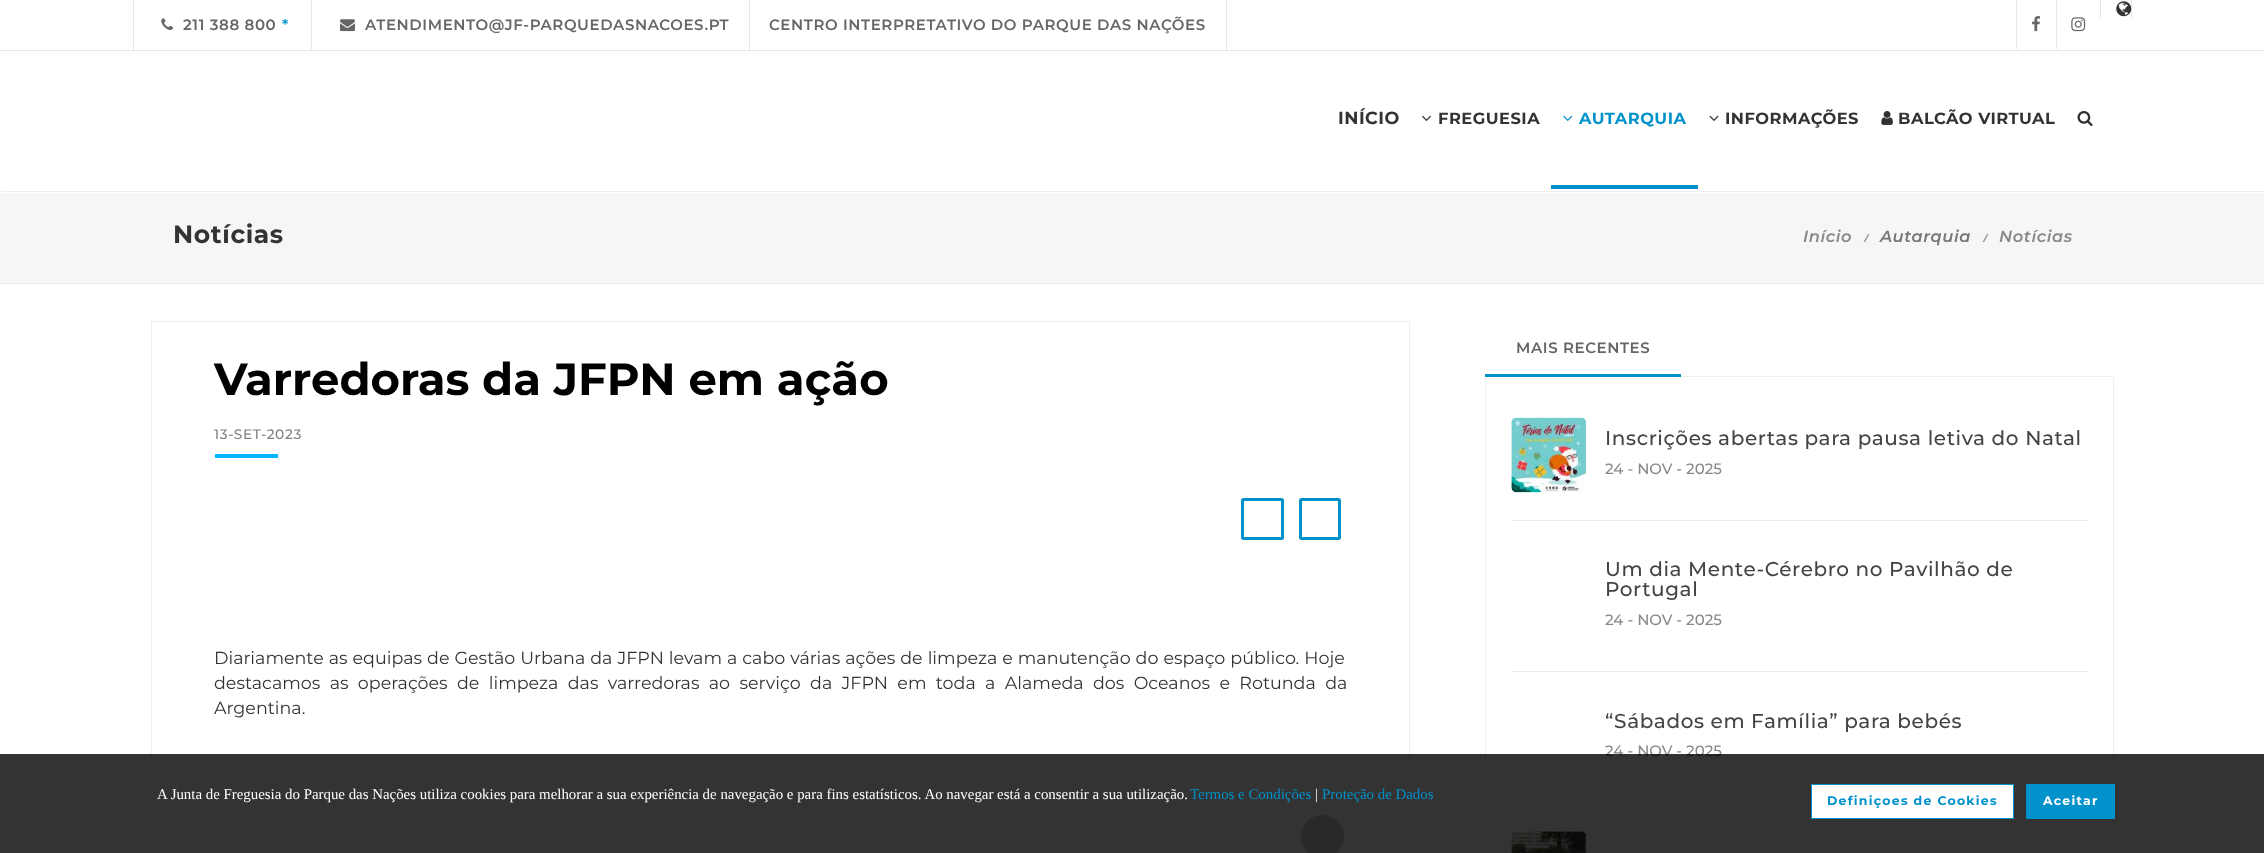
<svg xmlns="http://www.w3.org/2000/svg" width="2264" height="853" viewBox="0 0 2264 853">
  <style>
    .t1 { font: 600 15px Montserrat; letter-spacing: 0.6px; fill: #666; }
    .t2 { font: 600 15px Montserrat; letter-spacing: 0.6px; fill: #0292cb; }
    .t3 { font: bold 17.5px Montserrat; letter-spacing: 0.5px; fill: #333; }
    .t4 { font: bold 16.25px Montserrat; letter-spacing: 0.5px; fill: #333; }
    .t5 { font: bold 16.25px Montserrat; letter-spacing: 0.5px; fill: #0292cb; }
    .t6 { font: bold 25px Montserrat; letter-spacing: 0.6px; fill: #333; }
    .t7 { font: italic 600 16.25px Montserrat; letter-spacing: 0.6px; fill: #888; }
    .t8 { font: italic bold 11px Open Sans; letter-spacing: 0.6px; fill: #999; }
    .t9 { font: italic 600 16.25px Montserrat; letter-spacing: 0.6px; fill: #777; }
    .t10 { font: bold 45px Montserrat; fill: #000; }
    .t11 { font: 500 13.75px Montserrat; letter-spacing: 0.6px; fill: #818181; }
    .t12 { font: 17.5px Montserrat; fill: #333; }
    .t13 { font: 500 20px Montserrat; letter-spacing: 0.6px; fill: #444; }
    .t14 { font: 500 15px Montserrat; fill: #888; }
    .t15 { font: 14.88px Liberation Serif; fill: #fff; }
    .t16 { font: 14.88px Liberation Serif; fill: #0292cb; }
    .t17 { font: bold 12.5px Montserrat; letter-spacing: 1.25px; fill: #0292cb; }
    .t18 { font: bold 12.5px Montserrat; letter-spacing: 1.25px; fill: #fff; }
  </style>
  <rect width="100%" height="100%" fill="#f6f6f6"/>
  <rect x="0" y="0" width="2264" height="193" fill="#fff"/>
  <rect x="0" y="50" width="2264" height="1" fill="#e6e6e6"/>
  <rect x="133" y="0" width="1" height="50" fill="#e6e6e6"/>
  <image x="161" y="18" width="12" height="12" href="images/1.png"/>
  <text x="183" y="30" class="t1">211 388 800</text>
  <text x="282" y="30" class="t2">*</text>
  <rect x="311" y="0" width="1" height="50" fill="#e6e6e6"/>
  <image x="340" y="19" width="15" height="13" href="images/2.png"/>
  <text x="365" y="30" class="t1">ATENDIMENTO@JF-PARQUEDASNACOES.PT</text>
  <rect x="1226" y="0" width="1" height="50" fill="#e6e6e6"/>
  <rect x="749" y="0" width="1" height="50" fill="#e6e6e6"/>
  <text x="769" y="30" class="t1">CENTRO INTERPRETATIVO DO PARQUE DAS NAÇÕES</text>
  <rect x="2016" y="0" width="1" height="49" fill="#e6e6e6"/>
  <image x="2032" y="16" width="8" height="16" href="images/3.png"/>
  <rect x="2056" y="0" width="1" height="49" fill="#e6e6e6"/>
  <image x="2071" y="17" width="15" height="15" href="images/4.png"/>
  <rect x="2131" y="0" width="1" height="18" fill="#e6e6e6"/>
  <rect x="2100" y="0" width="1" height="18" fill="#e6e6e6"/>
  <image x="2116" y="1" width="16" height="16" href="images/5.png"/>
  <rect x="1" y="191" width="2263" height="1" fill="#ededed"/>
  <text x="1338" y="124" class="t3">INÍCIO</text>
  <image x="1422" y="115" width="9" height="6" href="images/6.png"/>
  <text x="1438" y="124" class="t4">FREGUESIA</text>
  <rect x="1551" y="185" width="147" height="4" fill="#0292cb"/>
  <image x="1563" y="115" width="10" height="6" href="images/7.png"/>
  <text x="1579" y="124" class="t5">AUTARQUIA</text>
  <image x="1709" y="115" width="10" height="6" href="images/8.png"/>
  <text x="1725" y="124" class="t4">INFORMAÇÕES</text>
  <image x="1881" y="111" width="12" height="14" href="images/9.png"/>
  <text x="1898" y="124" class="t4">BALCÃO VIRTUAL</text>
  <image x="2077" y="111" width="16" height="16" href="images/10.png"/>
  <rect x="0" y="283" width="2264" height="1" fill="#eaeaea"/>
  <text x="173" y="243" class="t6">Notícias</text>
  <text x="1803" y="242" class="t7">Início</text>
  <text x="1864" y="242" class="t8">/</text>
  <text x="1880" y="242" class="t9">Autarquia</text>
  <text x="1983" y="242" class="t8">/</text>
  <text x="1999" y="242" class="t7">Notícias</text>
  <rect x="0" y="284" width="2264" height="569" fill="#fff"/>
  <rect x="151.5" y="321.5" width="1258" height="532" fill="none" stroke="#eee"/>
  <text x="214" y="395" class="t10">Varredoras da JFPN em ação</text>
  <text x="214" y="439" class="t11">13-SET-2023</text>
  <rect x="215" y="454" width="63" height="4" fill="#02b7ff"/>
  <rect x="1242.5" y="499.5" width="40" height="39" rx="1" fill="none" stroke="#0292cb" stroke-width="3"/>
  <rect x="1300.5" y="499.5" width="39" height="39" rx="1" fill="none" stroke="#0292cb" stroke-width="3"/>
  <text x="214" y="664" word-spacing="0.4" class="t12">Diariamente as equipas de Gestão Urbana da JFPN levam a cabo várias ações de limpeza e manutenção do espaço público. Hoje</text>
  <text x="214" y="689" word-spacing="4.75" class="t12">destacamos as operações de limpeza das varredoras ao serviço da JFPN em toda a Alameda dos Oceanos e Rotunda da</text>
  <text x="214" y="714" class="t12">Argentina.</text>
  <circle cx="1322.5" cy="836.5" r="21.5" fill="#ccc"/>
  <rect x="1681" y="376" width="433" height="1" fill="#eee"/>
  <rect x="1485" y="374" width="196" height="3" fill="#0292cb"/>
  <text x="1516" y="353" class="t1">MAIS RECENTES</text>
  <rect x="2113" y="378" width="1" height="475" fill="#eee"/>
  <rect x="1485" y="378" width="1" height="475" fill="#eee"/>
  <rect x="1511" y="520" width="577" height="1" fill="#ebebeb"/>
  <image x="1511" y="417" width="75" height="76" href="images/11.png"/>
  <text x="1605" y="445" class="t13">Inscrições abertas para pausa letiva do Natal</text>
  <text x="1605" y="474" class="t14">24 - NOV - 2025</text>
  <rect x="1511" y="671" width="577" height="1" fill="#ebebeb"/>
  <text x="1605" y="576" class="t13">Um dia Mente-Cérebro no Pavilhão de</text>
  <text x="1605" y="596" class="t13">Portugal</text>
  <text x="1605" y="625" class="t14">24 - NOV - 2025</text>
  <rect x="1511" y="803" width="515" height="1" fill="#ebebeb"/>
  <text x="1605" y="728" class="t13">“Sábados em Família” para bebés</text>
  <text x="1605" y="756" class="t14">24 - NOV - 2025</text>
  <image x="1511" y="831" width="75" height="22" href="images/12.png"/>
  <rect x="0" y="754" width="2264" height="99" fill="#000000cc"/>
  <text x="157" y="799" class="t15">A Junta de Freguesia do Parque das Nações utiliza cookies para melhorar a sua experiência de navegação e para fins estatísticos. Ao navegar está a consentir a sua utilização.</text>
  <text x="1190" y="799" class="t16">Termos e Condições</text>
  <text x="1315" y="799" class="t15">|</text>
  <text x="1322" y="799" class="t16">Proteção de Dados</text>
  <rect x="1811.5" y="784.5" width="202" height="34" fill="#fff" stroke="#0292cb"/>
  <text x="1827" y="805" class="t17">Definiçoes de Cookies</text>
  <rect x="2026" y="784" width="89" height="35" fill="#0292cb"/>
  <text x="2043" y="805" class="t18">Aceitar</text>
</svg>
